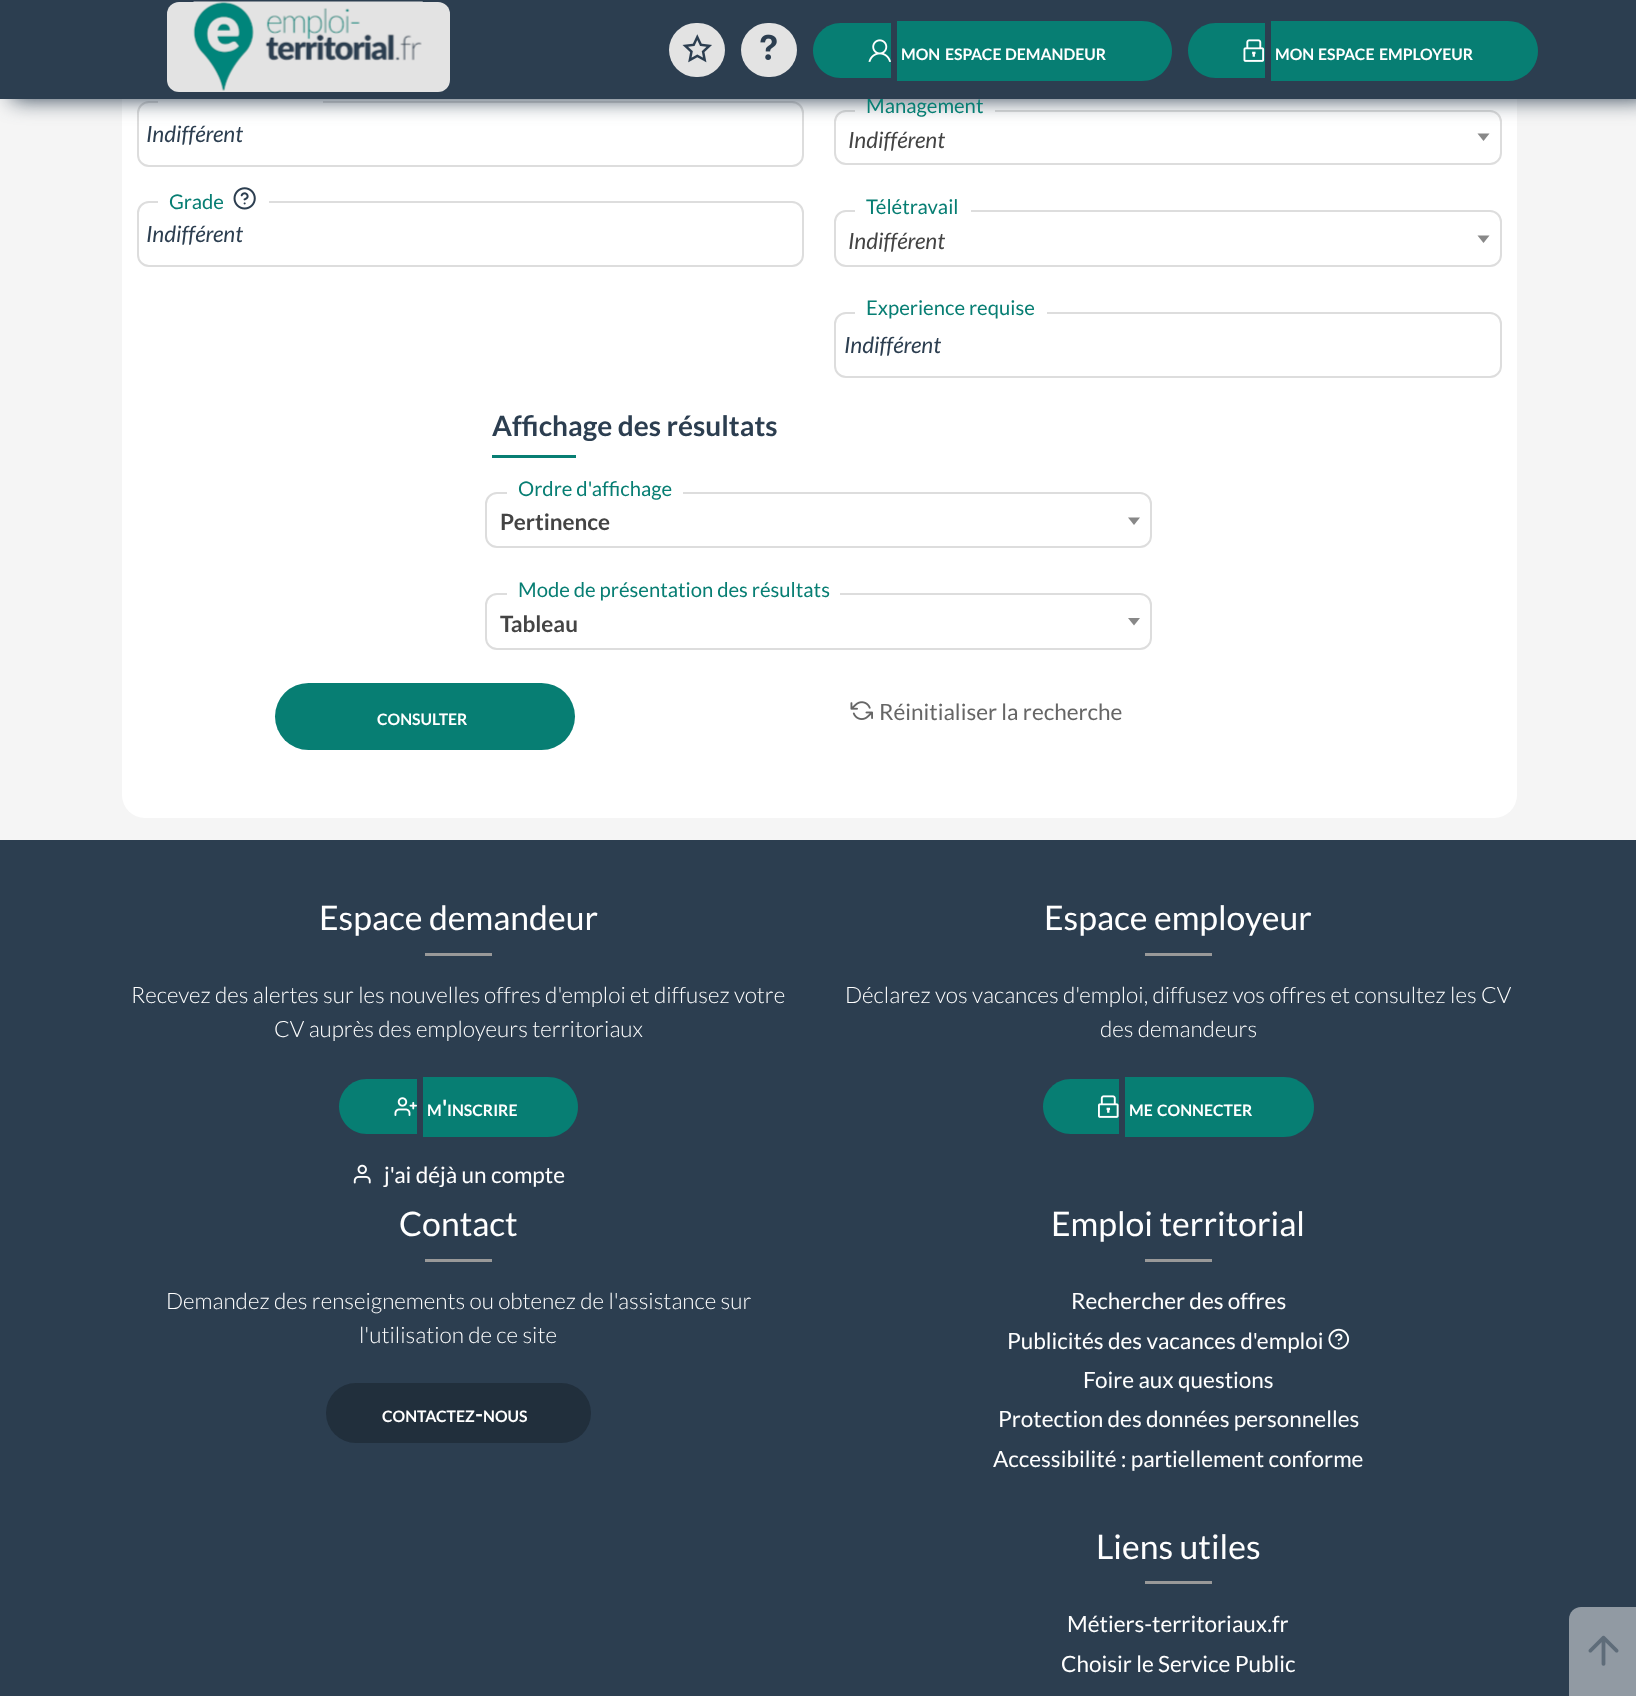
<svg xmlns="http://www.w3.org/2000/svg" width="1636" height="1696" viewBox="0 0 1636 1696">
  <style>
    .t1 { font: 20.25px Lato; fill: #077e73; }
    .t2 { font: bold 15.75px Lato; fill: #fff; }
    .t3 { font: italic 22.5px Lato; fill: #2c3e50; }
    .t4 { font: italic 22.5px Lato; fill: #444; }
    .t5 { font: bold 28.1px Lato; fill: #2c3e50; }
    .t6 { font: bold 22.5px Lato; fill: #444; }
    .t7 { font: 22.5px Lato; fill: #666; }
    .t8 { font: 33.75px Lato; fill: #fff; }
    .t9 { font: 300 22.5px Lato; fill: #fff; }
    .t10 { font: bold 22.5px Lato; fill: #fff; }
    .t11 { font: 22.5px Lato; fill: #fff; }
  </style>
  <rect width="100%" height="100%" fill="#f5f5f5"/>
  <rect x="122" y="-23" width="1395" height="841" rx="23" fill="#fff"/>
  <rect x="138" y="102" width="665" height="64" rx="11" fill="none" stroke="#ddd" stroke-width="2"/>
  <rect x="158" y="101" width="165" height="2" fill="#fff"/>
  <rect x="835" y="111" width="666" height="53" rx="11" fill="none" stroke="#ddd" stroke-width="2"/>
  <rect x="855" y="110" width="140" height="2" fill="#fff"/>
  <rect x="12" y="0" width="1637" height="99" fill="#2c3e50" filter="blur(11px)"/>
  <text x="866" y="113" class="t1">Management</text>
  <rect x="0" y="0" width="1636" height="99" fill="#2c3e50"/>
  <rect x="167" y="2" width="283" height="90" rx="12" fill="#e3e3e3"/>
  <image x="193" y="1" width="230" height="90" href="images/1.png"/>
  <rect x="669" y="23" width="56" height="54" rx="27" fill="#e3e3e3"/>
  <image x="682" y="34" width="30" height="29" href="images/2.png"/>
  <rect x="741" y="23" width="56" height="54" rx="27" fill="#e3e3e3"/>
  <image x="760" y="34" width="17" height="26" href="images/3.png"/>
  <path d="M840.5 23H891V78H840.5C825.5 78 813 65.5 813 50.5C813 35.5 825.5 23 840.5 23Z" fill="#077e73"/>
  <image x="868" y="39" width="23" height="23" href="images/4.png"/>
  <path d="M897 21H1142C1158.5 21 1172 34.5 1172 51C1172 67.5 1158.5 81 1142 81H897Z" fill="#077e73"/>
  <text x="901" y="60" class="t2">MON</text>
  <text x="945" y="60" class="t2">ESPACE</text>
  <text x="1005" y="60" class="t2">DEMANDEUR</text>
  <path d="M1215.5 23H1265V78H1215.5C1200.5 78 1188 65.5 1188 50.5C1188 35.5 1200.5 23 1215.5 23Z" fill="#077e73"/>
  <image x="1243" y="39" width="22" height="23" href="images/5.png"/>
  <path d="M1271 21H1508C1524.5 21 1538 34.5 1538 51C1538 67.5 1524.5 81 1508 81H1271Z" fill="#077e73"/>
  <text x="1275" y="60" class="t2">MON</text>
  <text x="1318" y="60" class="t2">ESPACE</text>
  <text x="1379" y="60" class="t2">EMPLOYEUR</text>
  <text x="146" y="142" class="t3">Indifférent</text>
  <rect x="138" y="202" width="665" height="64" rx="11" fill="none" stroke="#ddd" stroke-width="2"/>
  <rect x="158" y="201" width="111" height="2" fill="#fff"/>
  <text x="169" y="209" class="t1">Grade</text>
  <image x="233" y="187" width="23" height="23" href="images/6.png"/>
  <text x="146" y="242" class="t3">Indifférent</text>
  <text x="848" y="148" class="t4">Indifférent</text>
  <path d="M1477.5 133.5H1489.5L1483.5 141Z" fill="#888"/>
  <rect x="835" y="211" width="666" height="55" rx="11" fill="none" stroke="#ddd" stroke-width="2"/>
  <rect x="855" y="210" width="116" height="2" fill="#fff"/>
  <text x="866" y="214" class="t1">Télétravail</text>
  <text x="848" y="249" class="t4">Indifférent</text>
  <path d="M1477.5 235.5H1489.5L1483.5 243Z" fill="#888"/>
  <rect x="835" y="313" width="666" height="64" rx="11" fill="none" stroke="#ddd" stroke-width="2"/>
  <rect x="855" y="312" width="192" height="2" fill="#fff"/>
  <text x="866" y="315" class="t1">Experience requise</text>
  <text x="844" y="353" class="t3">Indifférent</text>
  <text x="492" y="436" class="t5">Affichage des résultats</text>
  <rect x="492" y="455" width="84" height="3" fill="#077e73"/>
  <rect x="486" y="493" width="665" height="54" rx="11" fill="none" stroke="#ddd" stroke-width="2"/>
  <rect x="507" y="492" width="176" height="2" fill="#fff"/>
  <text x="518" y="496" class="t1">Ordre d'affichage</text>
  <text x="500" y="530" class="t6">Pertinence</text>
  <path d="M1128 517.5H1140L1134 525Z" fill="#888"/>
  <rect x="486" y="594" width="665" height="55" rx="11" fill="none" stroke="#ddd" stroke-width="2"/>
  <rect x="507" y="593" width="333" height="2" fill="#fff"/>
  <text x="518" y="597" class="t1">Mode de présentation des résultats</text>
  <text x="500" y="632" class="t6">Tableau</text>
  <path d="M1128 618H1140L1134 625.5Z" fill="#888"/>
  <rect x="275" y="683" width="300" height="67" rx="33.5" fill="#077e73"/>
  <text x="377" y="725" class="t2">CONSULTER</text>
  <image x="850" y="701" width="23" height="19" href="images/7.png"/>
  <text x="879" y="720" class="t7">Réinitialiser la recherche</text>
  <rect x="0" y="840" width="1636" height="856" fill="#2c3e50"/>
  <text x="319" y="930" class="t8">Espace demandeur</text>
  <rect x="425" y="953" width="67" height="3" fill="#999"/>
  <text x="131" y="1003" class="t9">Recevez des alertes sur les nouvelles offres d'emploi et diffusez votre</text>
  <text x="274" y="1037" class="t9">CV auprès des employeurs territoriaux</text>
  <path d="M366.5 1079H417V1134H366.5C351.5 1134 339 1121.5 339 1106.5C339 1091.5 351.5 1079 366.5 1079Z" fill="#077e73"/>
  <image x="394" y="1097" width="23" height="19" href="images/8.png"/>
  <path d="M423 1077H548C564.5 1077 578 1090.5 578 1107C578 1123.5 564.5 1137 548 1137H423Z" fill="#077e73"/>
  <text x="442" y="1116" class="t10">'</text>
  <text x="427" y="1116" class="t2">M</text>
  <text x="447" y="1116" class="t2">INSCRIRE</text>
  <image x="353" y="1164" width="18" height="20" href="images/9.png"/>
  <text x="384" y="1183" class="t11">j'ai déjà un compte</text>
  <text x="1044" y="930" class="t8">Espace employeur</text>
  <rect x="1145" y="953" width="67" height="3" fill="#999"/>
  <text x="845" y="1003" class="t9">Déclarez vos vacances d'emploi, diffusez vos offres et consultez les CV</text>
  <text x="1100" y="1037" class="t9">des demandeurs</text>
  <path d="M1070.5 1079H1119V1134H1070.5C1055.5 1134 1043 1121.5 1043 1106.5C1043 1091.5 1055.5 1079 1070.5 1079Z" fill="#077e73"/>
  <image x="1098" y="1095" width="21" height="23" href="images/10.png"/>
  <path d="M1125 1077H1284C1300.5 1077 1314 1090.5 1314 1107C1314 1123.5 1300.5 1137 1284 1137H1125Z" fill="#077e73"/>
  <text x="1129" y="1116" class="t2">ME</text>
  <text x="1157" y="1116" class="t2">CONNECTER</text>
  <text x="399" y="1236" class="t8">Contact</text>
  <rect x="425" y="1259" width="67" height="3" fill="#999"/>
  <text x="166" y="1309" class="t9">Demandez des renseignements ou obtenez de l'assistance sur</text>
  <text x="359" y="1343" class="t9">l'utilisation de ce site</text>
  <rect x="326" y="1383" width="265" height="60" rx="30" fill="#212f3c"/>
  <text x="382" y="1422" class="t2">CONTACTEZ</text>
  <text x="475" y="1422" class="t10">-</text>
  <text x="483" y="1422" class="t2">NOUS</text>
  <text x="1051" y="1236" class="t8">Emploi territorial</text>
  <rect x="1145" y="1259" width="67" height="3" fill="#999"/>
  <text x="1071" y="1309" class="t11">Rechercher des offres</text>
  <text x="1007" y="1349" class="t11">Publicités des vacances d'emploi</text>
  <image x="1328" y="1328" width="22" height="22" href="images/11.png"/>
  <text x="1083" y="1388" class="t11">Foire aux questions</text>
  <text x="998" y="1427" class="t11">Protection des données personnelles</text>
  <text x="993" y="1467" class="t11">Accessibilité : partiellement conforme</text>
  <text x="1096" y="1559" class="t8">Liens utiles</text>
  <rect x="1145" y="1581" width="67" height="3" fill="#999"/>
  <text x="1067" y="1632" class="t11">Métiers-territoriaux.fr</text>
  <text x="1061" y="1672" class="t11">Choisir le Service Public</text>
  <path d="M1581 1607H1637V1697H1569V1619C1569 1612.5 1574.5 1607 1581 1607Z" fill="#919aa3"/>
  <image x="1588" y="1635" width="31" height="31" href="images/12.png"/>
</svg>
